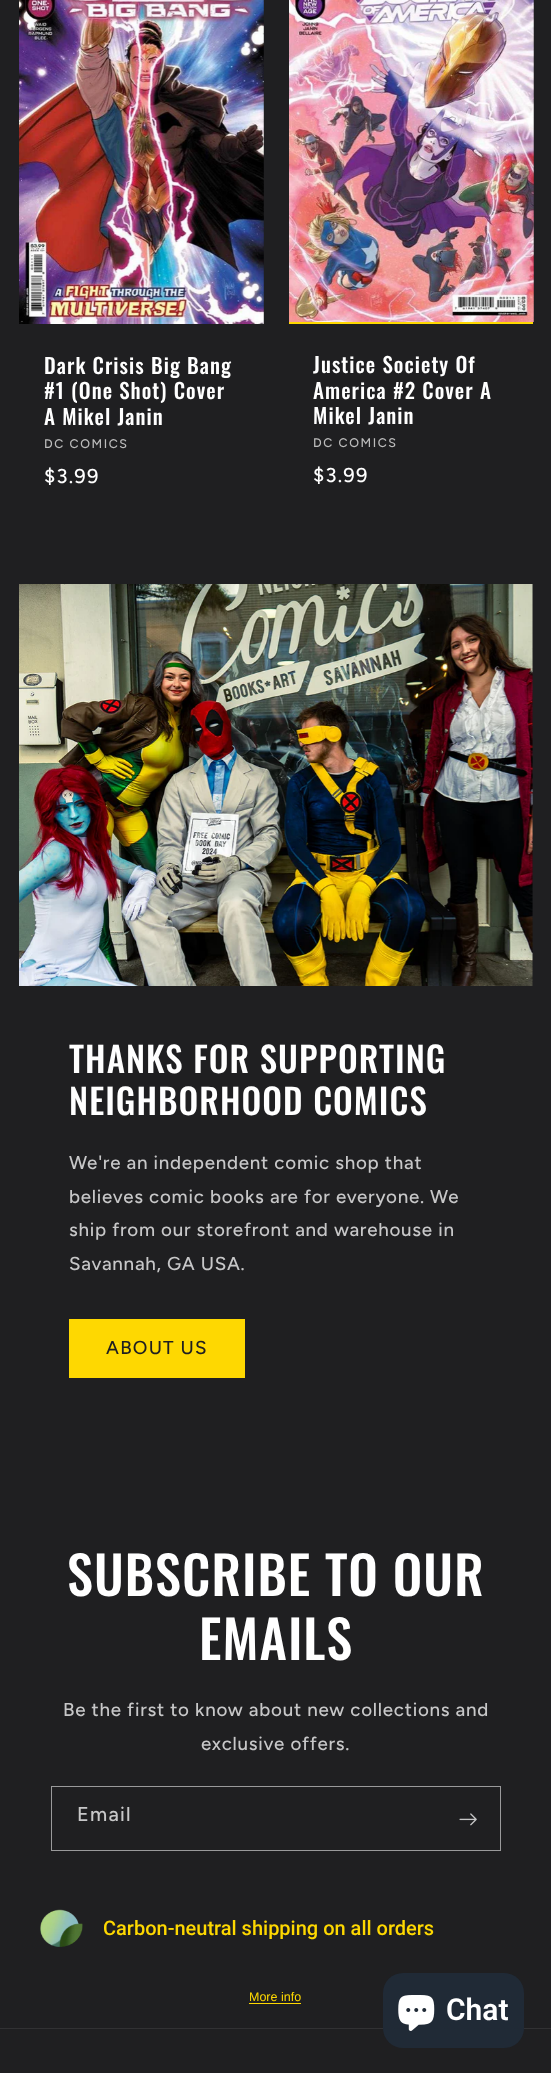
<svg xmlns="http://www.w3.org/2000/svg" width="551" height="2073" viewBox="0 0 551 2073">
  <style>
    .t1 { font: 500 21px Oswald; letter-spacing: 1.05px; fill: #fff; }
    .t2 { font: 500 12.5px Figtree; letter-spacing: 1.6px; fill: #bcbcbc; }
    .t3 { font: 500 20px Figtree; letter-spacing: 1.25px; fill: #fff; }
    .t4 { font: 500 35px Oswald; letter-spacing: 1.05px; fill: #fff; }
    .t5 { font: 500 18.75px Figtree; letter-spacing: 0.75px; fill: #c7c7c8; }
    .t6 { font: 500 18.75px Figtree; letter-spacing: 1.25px; fill: #1f1f21; }
    .t7 { font: 500 52.5px Oswald; letter-spacing: 1.05px; fill: #fff; }
    .t8 { font: 500 20px Figtree; letter-spacing: 1.25px; fill: #c7c7c8; }
    .t9 { font: 500 20px Roboto; fill: #fed801; }
    .t10 { font: 12.5px Liberation Sans; fill: #fed801; }
    .t11 { font: 600 30px Roboto; fill: #fff; }
  </style>
  <rect width="100%" height="100%" fill="#1f1f21"/>
  <image x="19" y="0" width="245" height="324" href="images/1.png"/>
  <text x="44" y="374" class="t1">Dark Crisis Big Bang</text>
  <text x="44" y="399" class="t1">#1 (One Shot) Cover</text>
  <text x="44" y="425" class="t1">A Mikel Janin</text>
  <text x="44" y="448" class="t2">DC COMICS</text>
  <text x="44" y="483" class="t3">$3.99</text>
  <rect x="289" y="322" width="244" height="2" fill="#fed801"/>
  <image x="289" y="0" width="245" height="322" href="images/2.png"/>
  <text x="313" y="373" class="t1">Justice Society Of</text>
  <text x="313" y="399" class="t1">America #2 Cover A</text>
  <text x="313" y="424" class="t1">Mikel Janin</text>
  <text x="313" y="447" class="t2">DC COMICS</text>
  <text x="313" y="482" class="t3">$3.99</text>
  <image x="19" y="584" width="514" height="402" href="images/3.png"/>
  <text x="69" y="1073" class="t4">THANKS FOR SUPPORTING</text>
  <text x="69" y="1115" class="t4">NEIGHBORHOOD COMICS</text>
  <text x="69" y="1169" class="t5">We're an independent comic shop that</text>
  <text x="69" y="1203" class="t5">believes comic books are for everyone. We</text>
  <text x="69" y="1236" class="t5">ship from our storefront and warehouse in</text>
  <text x="69" y="1270" class="t5">Savannah, GA USA.</text>
  <rect x="69" y="1319" width="176" height="59" fill="#fed801"/>
  <text x="106" y="1354" class="t6">ABOUT US</text>
  <text x="67" y="1596" class="t7">SUBSCRIBE TO OUR</text>
  <text x="199" y="1660" class="t7">EMAILS</text>
  <text x="63" y="1716" class="t5">Be the first to know about new collections and</text>
  <text x="201" y="1750" class="t5">exclusive offers.</text>
  <rect x="51.5" y="1786.5" width="449" height="64" fill="none" stroke="#9a9a9b"/>
  <text x="77" y="1821" class="t8">Email</text>
  <image x="459" y="1813" width="18" height="13" href="images/4.png"/>
  <image x="40" y="1909" width="43" height="38" href="images/5.png"/>
  <text x="103" y="1935" class="t9">Carbon-neutral shipping on all orders</text>
  <text x="249" y="2001" class="t10">More info</text>
  <rect x="249" y="2003" width="52" height="1" fill="#fed801"/>
  <rect x="0" y="2028" width="551" height="1" fill="#313133"/>
  <rect x="383" y="1973" width="141" height="75" rx="20" fill="#202a36"/>
  <image x="398" y="1995" width="37" height="36" href="images/6.png"/>
  <text x="446" y="2020" class="t11">Chat</text>
</svg>
